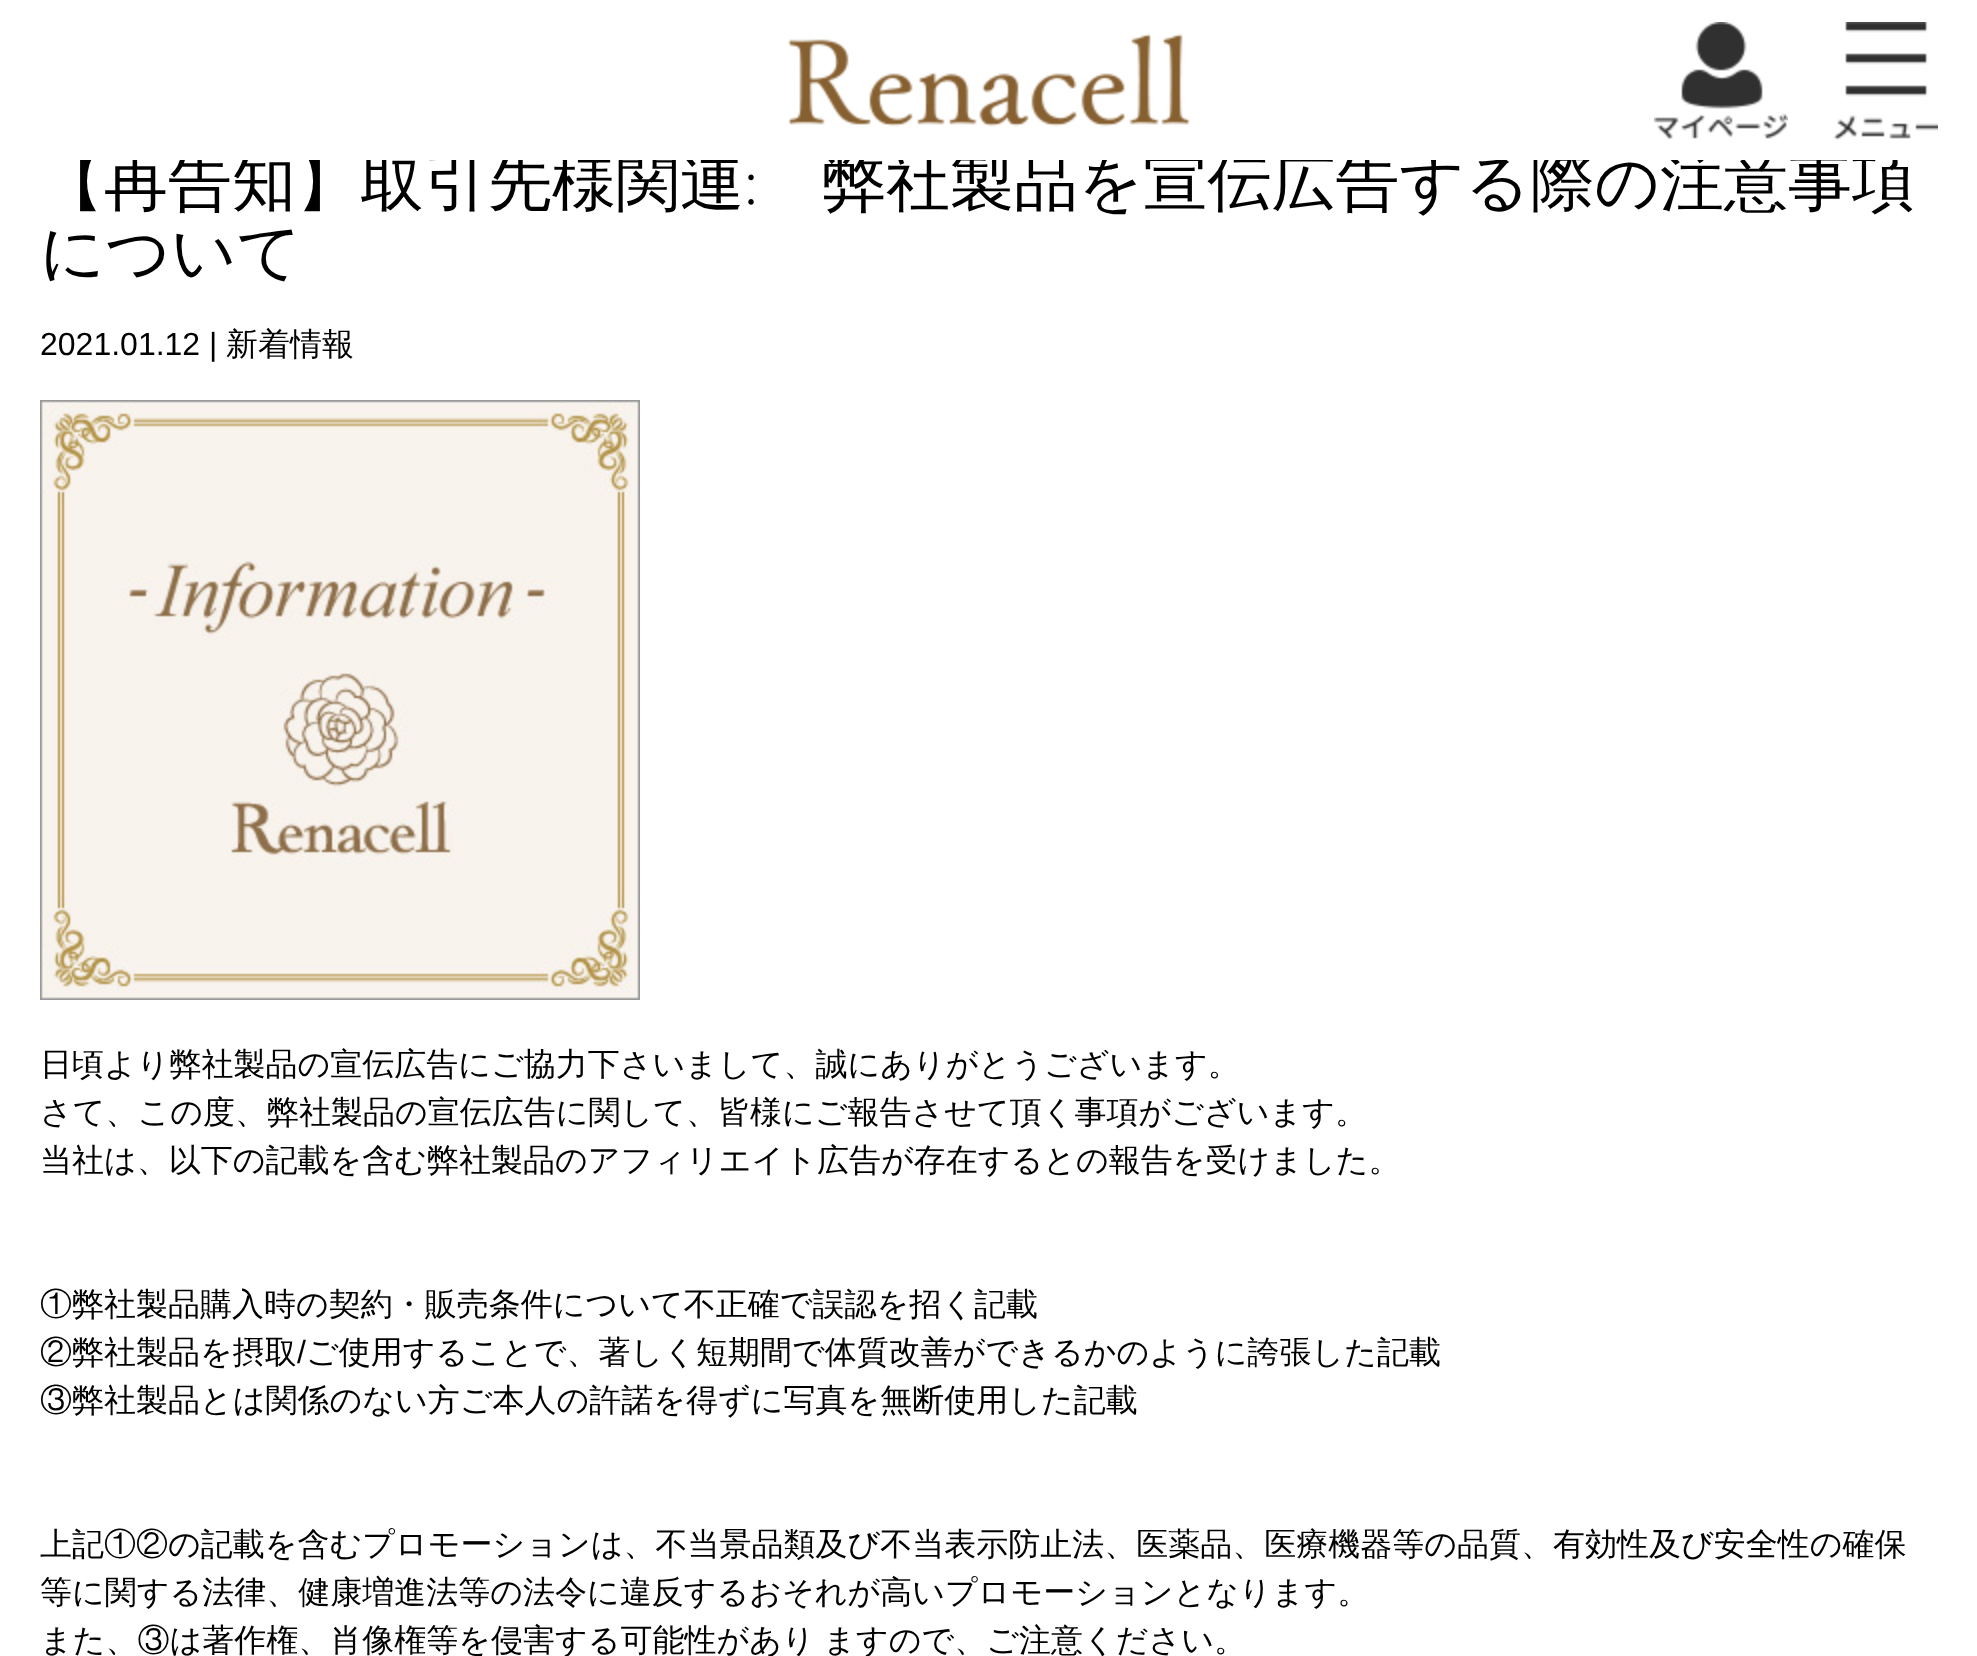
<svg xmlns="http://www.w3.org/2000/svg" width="1977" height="1656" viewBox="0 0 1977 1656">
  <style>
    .t1 { font: 500 64px WenQuanYi Zen Hei; fill: #000; }
    .t2 { font: 300 64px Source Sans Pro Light; fill: #000; }
    .t3 { font: 32px Liberation Sans; fill: #000; }
    .t4 { font: 500 32px WenQuanYi Zen Hei; fill: #000; }
  </style>
  <rect width="100%" height="100%" fill="#fff"/>
  <text x="40" y="204" class="t1">【再告知】取引先様関連</text>
  <text x="822" y="204" class="t1">弊社製品を宣伝広告する際の注意事項</text>
  <rect x="80" y="149" width="1834" height="11" fill="#fff"/>
  <image x="788" y="33" width="402" height="94" href="images/1.png"/>
  <image x="1654" y="22" width="134" height="118" href="images/2.png"/>
  <image x="1834" y="22" width="104" height="118" href="images/3.png"/>
  <text x="744" y="204" class="t2">:</text>
  <text x="40" y="274" class="t1">について</text>
  <text x="40" y="355" class="t3">2021.01.12 |</text>
  <text x="226" y="355" class="t4">新着情報</text>
  <image x="40" y="400" width="600" height="600" href="images/4.png"/>
  <text x="40" y="1075" class="t4">日頃より弊社製品の宣伝広告にご協力下さいまして、誠にありがとうございます。</text>
  <text x="40" y="1123" class="t4">さて、この度、弊社製品の宣伝広告に関して、皆様にご報告させて頂く事項がございます。</text>
  <text x="40" y="1171" class="t4">当社は、以下の記載を含む弊社製品のアフィリエイト広告が存在するとの報告を受けました。</text>
  <text x="40" y="1315" class="t4">①弊社製品購入時の契約・販売条件について不正確で誤認を招く記載</text>
  <text x="40" y="1363" class="t4">②弊社製品を摂取</text>
  <text x="297" y="1363" class="t3">/</text>
  <text x="306" y="1363" class="t4">ご使用することで、著しく短期間で体質改善ができるかのように誇張した記載</text>
  <text x="40" y="1411" class="t4">③弊社製品とは関係のない方ご本人の許諾を得ずに写真を無断使用した記載</text>
  <text x="40" y="1555" class="t4">上記①②の記載を含むプロモーションは、不当景品類及び不当表示防止法、医薬品、医療機器等の品質、有効性及び安全性の確保</text>
  <text x="40" y="1603" class="t4">等に関する法律、健康増進法等の法令に違反するおそれが高いプロモーションとなります。</text>
  <text x="40" y="1651" word-spacing="-1" class="t4">また、③は著作権、肖像権等を侵害する可能性があり ますので、ご注意ください。</text>
</svg>
